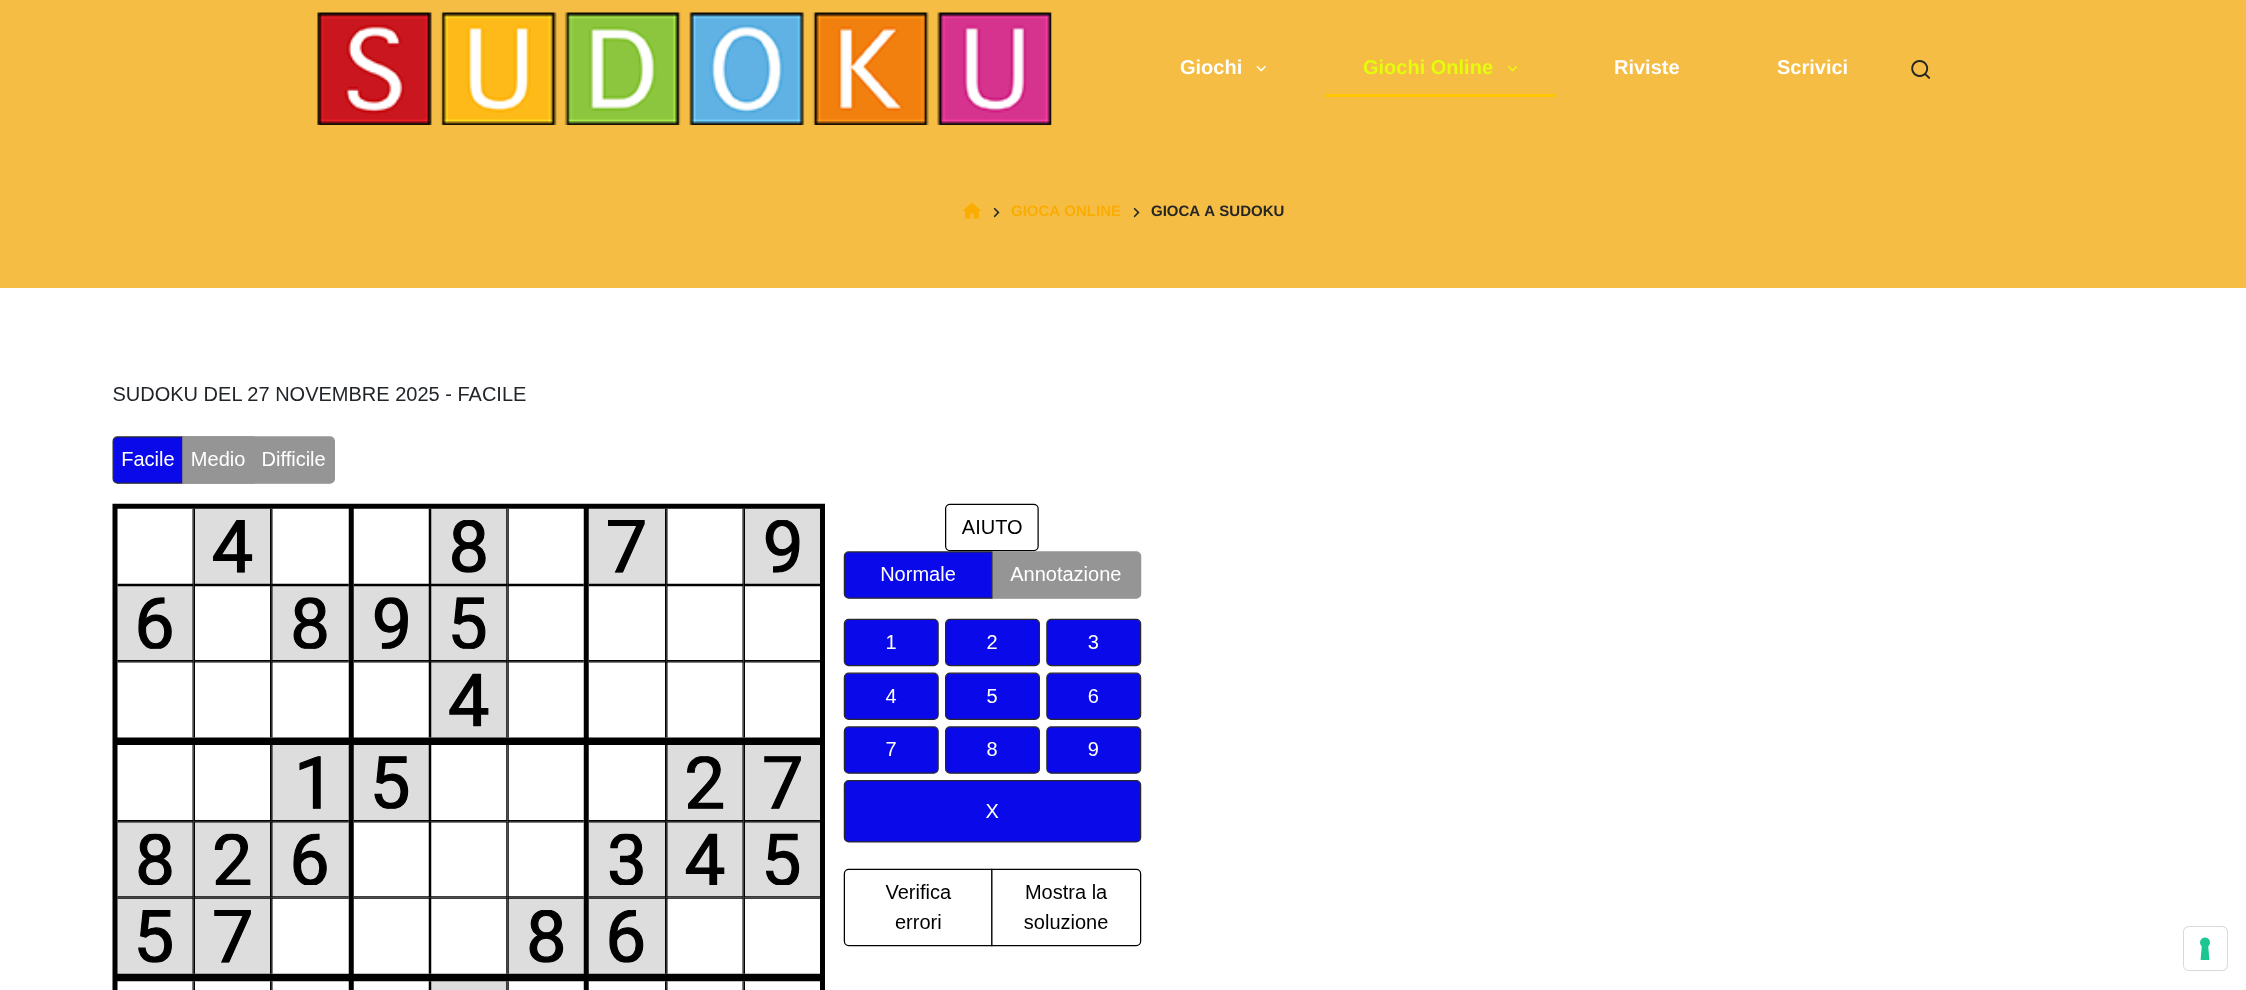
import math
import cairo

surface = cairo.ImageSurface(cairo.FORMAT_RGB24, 2246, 990)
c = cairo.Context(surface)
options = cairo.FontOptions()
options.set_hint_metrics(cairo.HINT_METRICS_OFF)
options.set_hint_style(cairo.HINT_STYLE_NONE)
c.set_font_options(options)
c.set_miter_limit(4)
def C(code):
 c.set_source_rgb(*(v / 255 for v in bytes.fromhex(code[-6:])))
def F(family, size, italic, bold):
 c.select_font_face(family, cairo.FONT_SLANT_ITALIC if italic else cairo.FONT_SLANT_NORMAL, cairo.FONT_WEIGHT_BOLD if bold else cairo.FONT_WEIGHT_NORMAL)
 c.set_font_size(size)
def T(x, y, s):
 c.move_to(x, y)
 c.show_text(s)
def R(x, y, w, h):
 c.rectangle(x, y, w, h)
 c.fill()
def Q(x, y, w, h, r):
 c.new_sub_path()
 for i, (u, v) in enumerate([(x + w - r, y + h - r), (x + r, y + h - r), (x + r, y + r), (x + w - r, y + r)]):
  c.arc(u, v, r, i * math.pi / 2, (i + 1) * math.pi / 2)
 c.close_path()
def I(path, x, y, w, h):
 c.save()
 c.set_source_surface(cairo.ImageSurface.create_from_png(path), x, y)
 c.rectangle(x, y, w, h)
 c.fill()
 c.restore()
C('ffffff')
c.paint()
C('f5bd44')
R(0,0,2246,288)
I('1.png',317,12,735,113)
F('Liberation Sans',20,0,1)
C('ffffff')
T(1180,74,'Giochi')
I('2.png',1256,66,10,6)
C('e5fd0a')
T(1363,74,'Giochi Online')
I('3.png',1508,66,10,6)
C('ffc800')
R(1325,94,230,3)
C('ffffff')
T(1614,74,'Riviste')
T(1777,74,'Scrivici')
I('4.png',1911,60,19,19)
I('5.png',963,202,18,17)
I('6.png',993,208,7,10)
F('Liberation Sans',15,0,1)
C('fbac00')
T(1011,216,'GIOCA ONLINE')
I('6.png',1133,208,7,10)
C('262625')
T(1151,216,'GIOCA A SUDOKU')
I('7.png',112,387,1030,603)
Q(2183.5,926.5,44,44,5.5)
C('d9d9d9')
c.set_line_width(1)
c.stroke()
C('ffffff')
Q(2184,928,42,42,5)
c.fill()
I('8.png',2200,937,10,23)
surface.write_to_png('o.png')
